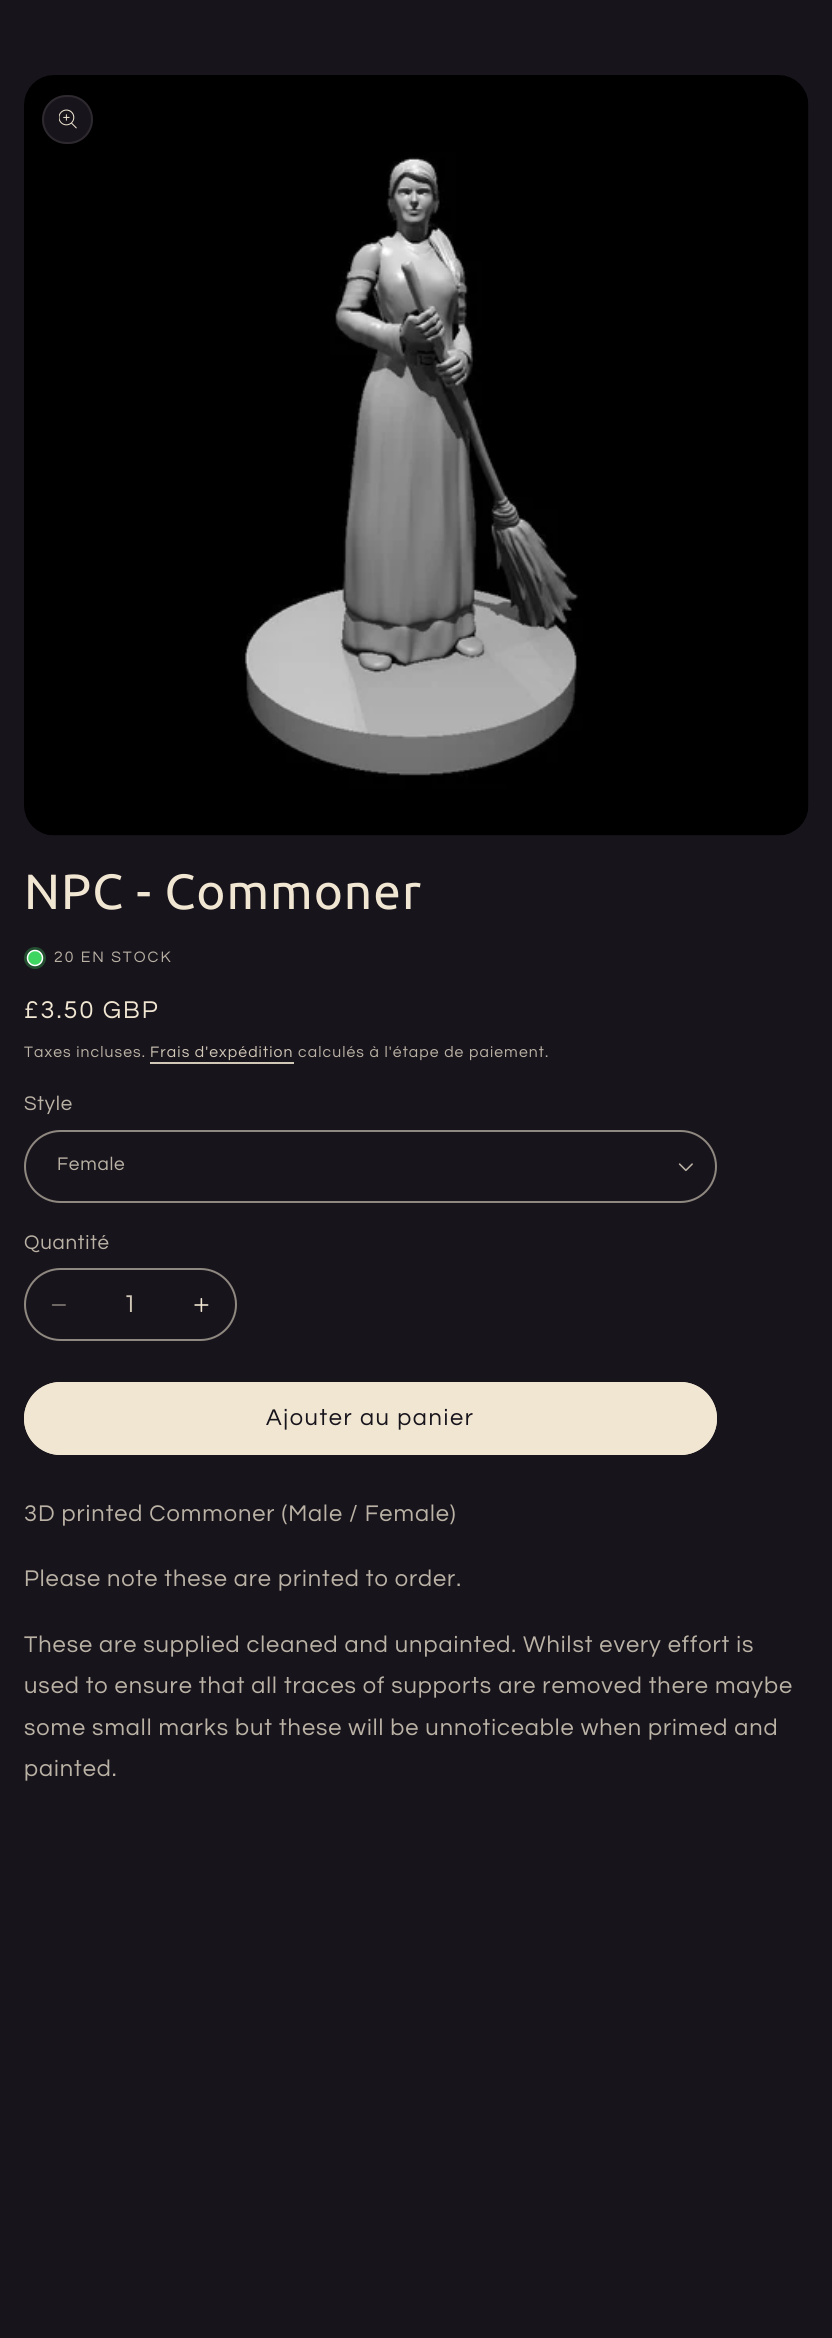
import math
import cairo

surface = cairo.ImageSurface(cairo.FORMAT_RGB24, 832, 2338)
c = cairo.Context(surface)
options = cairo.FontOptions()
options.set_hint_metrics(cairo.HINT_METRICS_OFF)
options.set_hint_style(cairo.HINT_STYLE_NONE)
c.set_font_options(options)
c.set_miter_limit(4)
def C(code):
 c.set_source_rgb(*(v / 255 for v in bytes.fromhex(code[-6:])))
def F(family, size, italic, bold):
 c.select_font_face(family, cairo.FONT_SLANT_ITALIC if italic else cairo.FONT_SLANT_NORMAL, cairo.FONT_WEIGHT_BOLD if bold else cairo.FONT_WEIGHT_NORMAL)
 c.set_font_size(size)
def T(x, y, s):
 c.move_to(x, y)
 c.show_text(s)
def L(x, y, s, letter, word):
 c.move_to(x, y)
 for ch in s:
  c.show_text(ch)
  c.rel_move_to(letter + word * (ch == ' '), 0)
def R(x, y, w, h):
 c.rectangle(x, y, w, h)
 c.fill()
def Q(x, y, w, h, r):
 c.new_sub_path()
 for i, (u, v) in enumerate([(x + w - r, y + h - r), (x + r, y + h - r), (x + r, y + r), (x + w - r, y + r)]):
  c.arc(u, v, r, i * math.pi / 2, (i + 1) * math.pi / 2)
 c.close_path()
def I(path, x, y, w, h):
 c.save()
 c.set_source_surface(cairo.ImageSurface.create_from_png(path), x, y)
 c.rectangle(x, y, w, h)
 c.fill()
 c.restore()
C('18141c')
c.paint()
I('1.png',24,75,785,761)
C('18141c')
Q(42,95,51,49,24.5)
c.fill()
Q(43,96,49,47,23.5)
c.set_source_rgba(0.941,0.902,0.824,0.1)
c.stroke()
I('2.png',59,109,18,20)
F('Ubuntu',49.5,0,0)
C('f0e6d2')
L(24,909,'NPC - Commoner',1,0)
C('234e30')
c.new_path()
c.arc(35,958,11,0,2 * math.pi)
c.fill()
C('3ed660')
c.arc(35,958,7.5,0,2 * math.pi)
c.fill_preserve()
C('ffffff')
c.set_line_width(1.5)
c.stroke()
F('Questrial',15.75,0,0)
C('bab2a5')
L(54,962,'20 EN STOCK',2,0)
F('Questrial',25.25,0,0)
C('f0e6d2')
L(24,1018,'£3.50 GBP',2,0)
F('Questrial',15.75,0,0)
C('bab2a5')
L(24,1057,'Taxes incluses.',1.1,0)
C('d0c7b7')
L(150,1057,'Frais d\'expédition',1.1,0)
R(150,1062,144,2)
C('bab2a5')
L(298,1057,'calculés à l\'étape de paiement.',1.1,0)
F('Questrial',20.5,0,0)
L(24,1110,'Style',.75,0)
I('3.png',678,1163,15,9)
Q(25,1131,691,71,35.5)
C('8f8880')
c.set_line_width(2)
c.stroke()
F('Questrial',19,0,0)
C('bab2a5')
L(57,1170,'Female',.75,0)
F('Questrial',20.5,0,0)
L(24,1249,'Quantité',.75,0)
I('4.png',51,1304,15,2)
I('5.png',194,1298,15,14)
Q(25,1269,211,71,35.5)
C('8f8880')
c.stroke()
F('Questrial',25.25,0,0)
C('d0c7b7')
T(123,1312,'1')
C('f0e6d2')
Q(24,1382,693,73,36.5)
c.fill()
Q(25,1383,691,71,35.5)
c.stroke()
F('Questrial',23.6,0,0)
C('18141c')
L(266,1425,'Ajouter au panier',1.6,0)
C('bab2a5')
L(24,1521,'3D printed Commoner (Male / Female)',.95,0)
L(24,1586,'Please note these are printed to order.',.95,0)
L(24,1652,'These are supplied cleaned and unpainted. Whilst every effort is',.95,0)
L(24,1693,'used to ensure that all traces of supports are removed there maybe',.95,0)
L(24,1735,'some small marks but these will be unnoticeable when primed and',.95,0)
L(24,1776,'painted.',.95,0)
surface.write_to_png('o.png')
